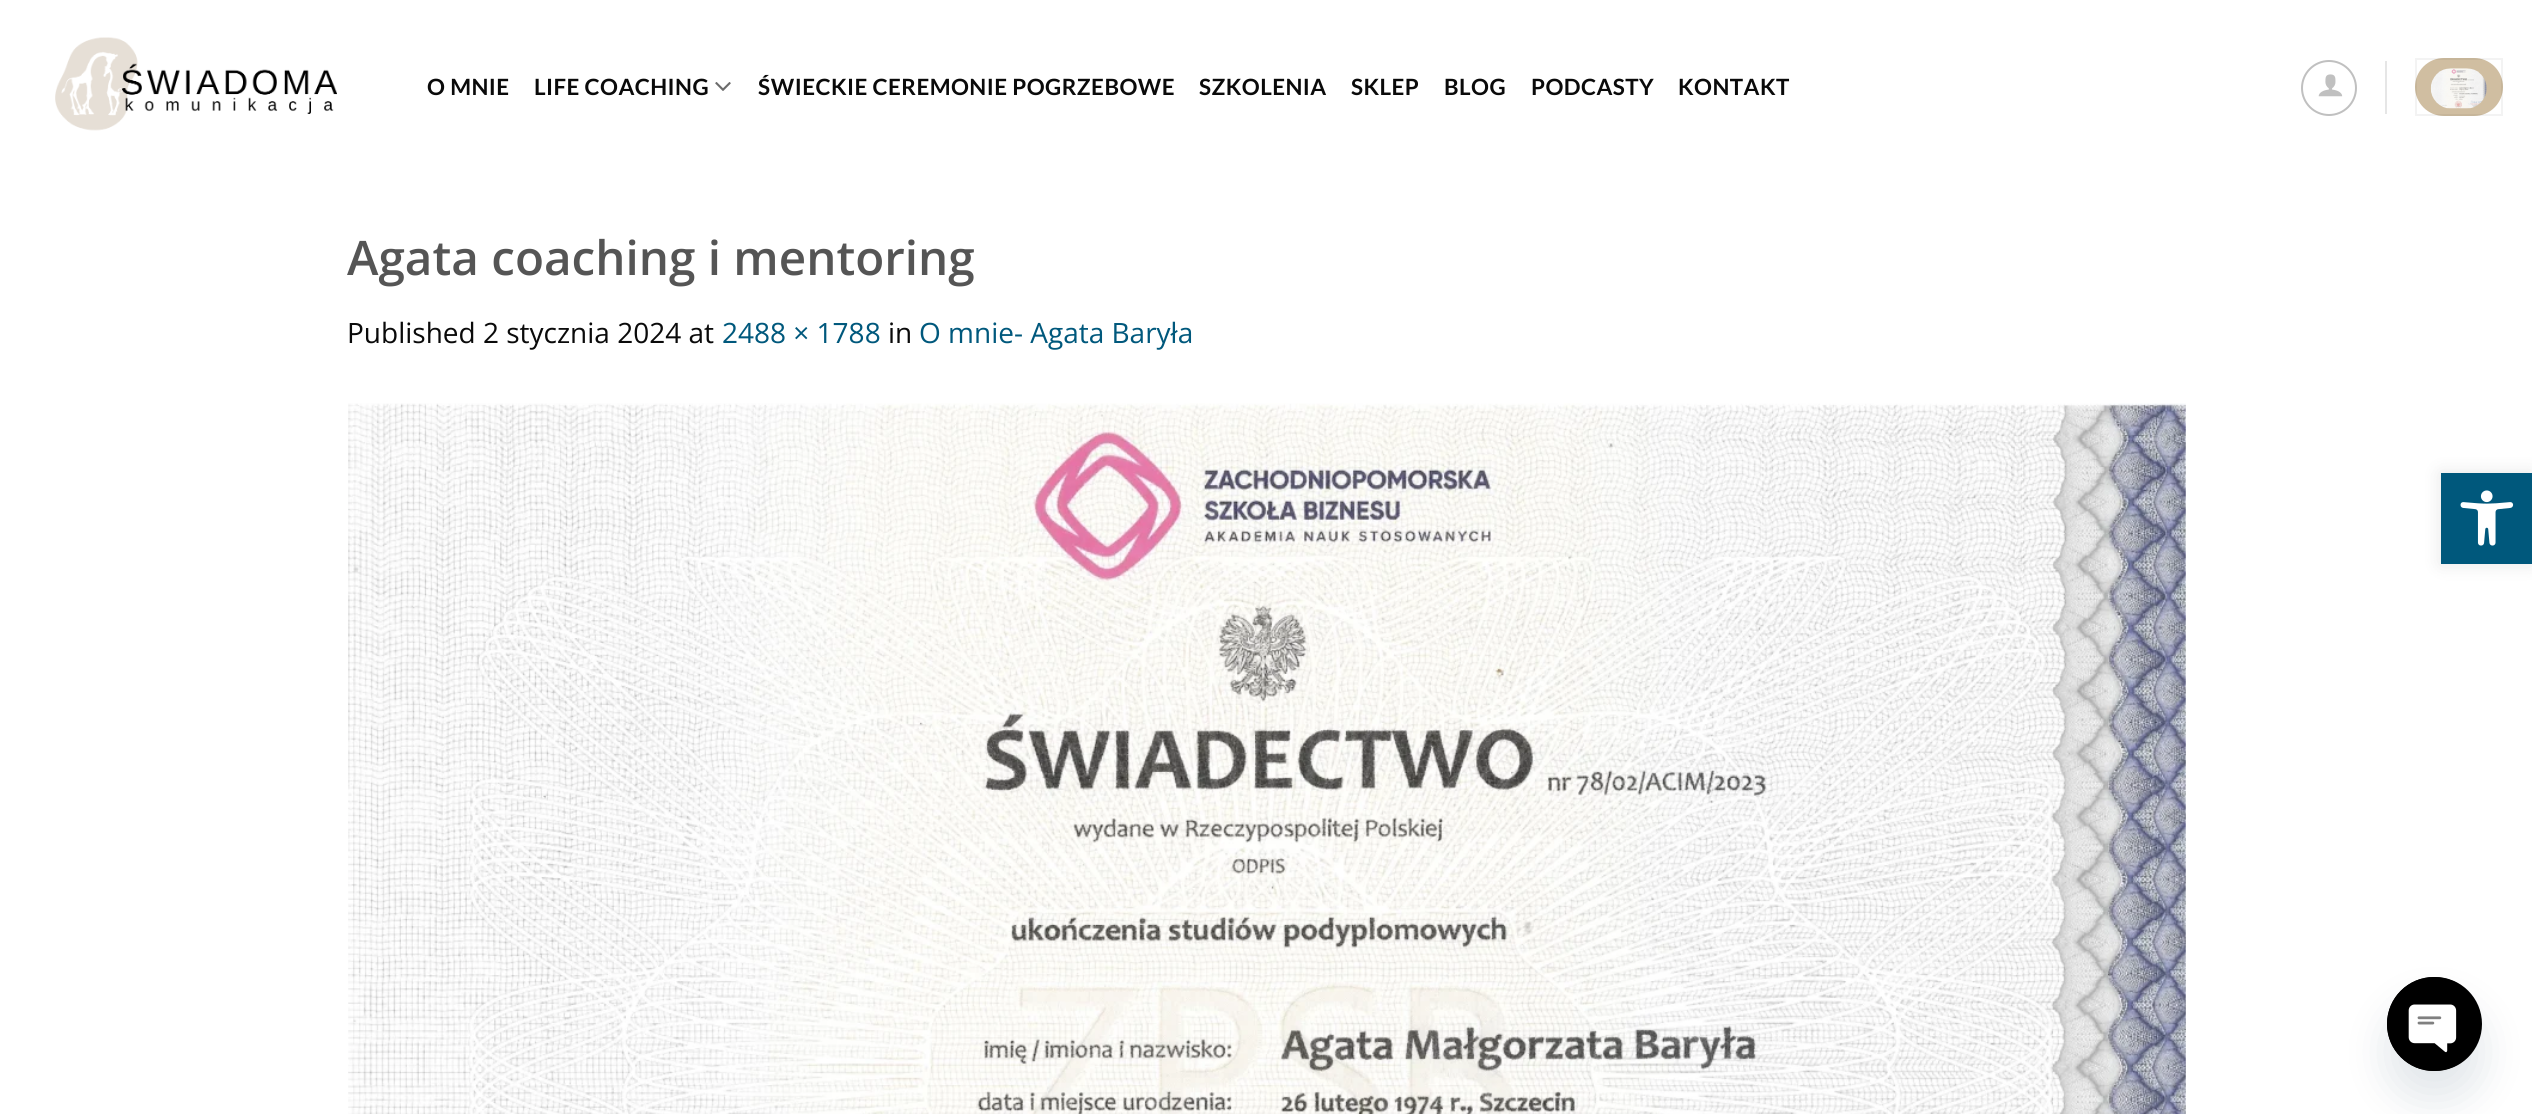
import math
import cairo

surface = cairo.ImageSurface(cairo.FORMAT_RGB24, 2532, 1114)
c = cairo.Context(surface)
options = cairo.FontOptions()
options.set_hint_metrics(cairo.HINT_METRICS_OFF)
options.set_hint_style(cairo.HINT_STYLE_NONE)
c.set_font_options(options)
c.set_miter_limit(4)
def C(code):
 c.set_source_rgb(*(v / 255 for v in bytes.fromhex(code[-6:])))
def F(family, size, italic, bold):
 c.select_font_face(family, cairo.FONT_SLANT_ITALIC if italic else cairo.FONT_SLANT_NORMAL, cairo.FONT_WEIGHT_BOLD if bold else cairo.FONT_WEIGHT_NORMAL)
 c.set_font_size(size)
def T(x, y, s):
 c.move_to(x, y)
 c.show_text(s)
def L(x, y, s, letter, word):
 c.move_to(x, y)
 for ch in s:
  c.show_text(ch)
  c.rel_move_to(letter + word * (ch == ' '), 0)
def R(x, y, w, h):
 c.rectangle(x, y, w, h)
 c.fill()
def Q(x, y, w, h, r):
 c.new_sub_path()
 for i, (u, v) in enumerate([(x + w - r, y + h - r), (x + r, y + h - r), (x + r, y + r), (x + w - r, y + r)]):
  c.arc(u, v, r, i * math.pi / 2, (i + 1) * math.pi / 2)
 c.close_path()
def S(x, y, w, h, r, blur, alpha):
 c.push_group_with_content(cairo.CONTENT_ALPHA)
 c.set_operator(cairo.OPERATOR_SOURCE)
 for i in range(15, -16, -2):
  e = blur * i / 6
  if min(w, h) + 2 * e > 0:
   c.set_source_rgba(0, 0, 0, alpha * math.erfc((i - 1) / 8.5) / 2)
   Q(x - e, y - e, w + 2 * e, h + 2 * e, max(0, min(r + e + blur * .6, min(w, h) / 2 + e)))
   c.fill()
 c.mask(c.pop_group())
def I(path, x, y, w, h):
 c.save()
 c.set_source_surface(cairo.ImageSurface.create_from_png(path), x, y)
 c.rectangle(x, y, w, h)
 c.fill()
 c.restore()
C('ffffff')
c.paint()
I('1.png',55,37,282,94)
F('Lato',22.4,0,1)
C('0a0a0a')
L(427,95,'O MNIE',.45,0)
L(534,95,'LIFE COACHING',.45,0)
I('2.png',715,82,16,9)
L(758,95,'ŚWIECKIE CEREMONIE POGRZEBOWE',.45,0)
L(1199,95,'SZKOLENIA',.45,0)
L(1351,95,'SKLEP',.45,0)
L(1444,95,'BLOG',.45,0)
L(1531,95,'PODCASTY',.45,0)
L(1678,95,'KONTAKT',.45,0)
c.new_path()
c.arc(2329,88,27,0,2 * math.pi)
C('c0c0c0')
c.stroke()
I('3.png',2318,74,25,23)
C('e6e6e6')
R(2385,61,2,53)
C('d0bea1')
Q(2415,58,88,58,29)
c.fill()
c.rectangle(2416,59,86,56)
c.set_source_rgba(0,0,0,0.05)
c.stroke()
I('4.png',2430,68,57,41)
F('Open Sans SemiBold',47.6,0,0)
C('555555')
T(347,275,'Agata coaching i mentoring')
F('Open Sans',28,0,0)
C('0a0a0a')
T(347,343,'Published 2 stycznia 2024 at')
C('00587c')
T(722,343,'2488 × 1788')
C('0a0a0a')
T(888,343,'in')
C('00587c')
T(919,343,'O mnie- Agata Baryła')
I('5.png',348,403,1838,711)
C('000000')
S(2441,473,91,91,0,9,.1)
C('00587c')
R(2441,473,91,91)
I('6.png',2460,490,54,56)
C('49687e')
S(2387,1005,95,94,47,21,.16)
C('000000')
Q(2387,977,95,94,47)
c.fill()
I('7.png',2387,977,70,94)
surface.write_to_png('o.png')
